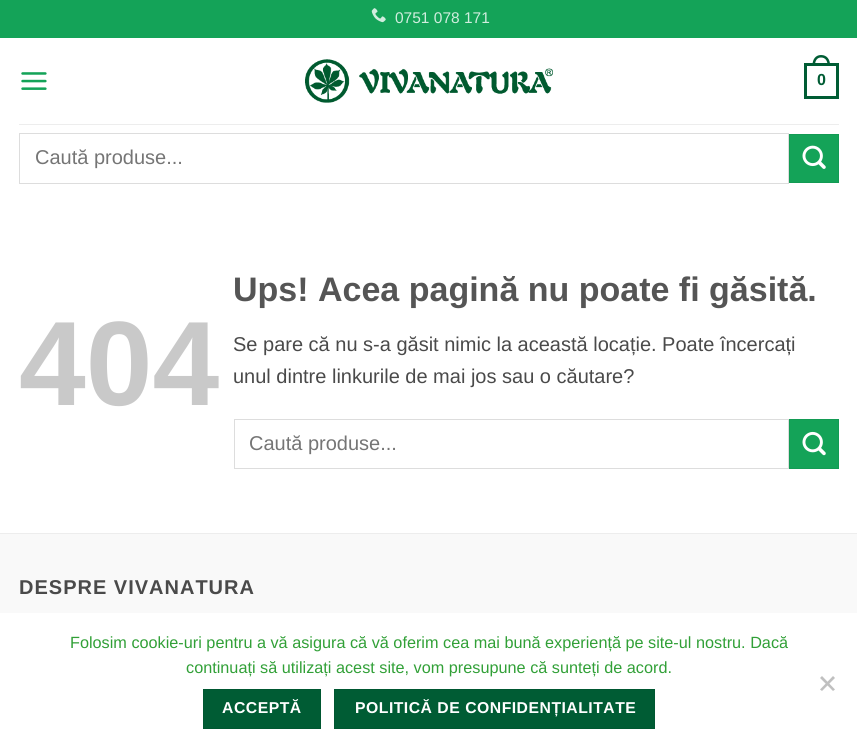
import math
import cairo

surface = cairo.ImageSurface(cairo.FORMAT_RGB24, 857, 753)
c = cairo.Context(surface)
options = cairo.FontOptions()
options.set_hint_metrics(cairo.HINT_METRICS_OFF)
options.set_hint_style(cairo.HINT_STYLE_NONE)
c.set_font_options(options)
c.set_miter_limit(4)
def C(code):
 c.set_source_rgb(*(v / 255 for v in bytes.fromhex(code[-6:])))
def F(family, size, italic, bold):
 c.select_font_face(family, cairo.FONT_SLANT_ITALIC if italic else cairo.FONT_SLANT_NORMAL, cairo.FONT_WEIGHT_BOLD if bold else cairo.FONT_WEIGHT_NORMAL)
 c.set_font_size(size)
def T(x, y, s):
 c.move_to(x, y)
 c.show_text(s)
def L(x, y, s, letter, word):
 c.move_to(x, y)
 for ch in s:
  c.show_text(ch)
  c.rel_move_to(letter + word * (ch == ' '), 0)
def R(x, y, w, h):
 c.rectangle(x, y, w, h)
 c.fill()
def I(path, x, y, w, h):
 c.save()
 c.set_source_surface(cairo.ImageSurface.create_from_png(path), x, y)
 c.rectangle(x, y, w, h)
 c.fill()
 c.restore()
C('ffffff')
c.paint()
C('14a358')
R(0,0,857,38)
I('1.png',371,8,15,15)
F('Liberation Sans',15.5,0,0)
C('d0edde')
T(395,23,'0751 078 171')
I('2.png',21,72,26,18)
I('3.png',305,59,248,44)
c.rectangle(805.5,64.5,32,33)
C('005c34')
c.set_line_width(3)
c.stroke()
c.set_fill_rule(cairo.FILL_RULE_EVEN_ODD)
c.new_path()
c.move_to(821,55)
c.curve_to(827,55,830,59.5,830,65)
c.line_to(812.5,65)
c.curve_to(812.5,59.5,815.5,55,821,55)
c.close_path()
c.move_to(821,57.5)
c.curve_to(825.5,57.5,827.5,61,827.5,65)
c.line_to(815,65)
c.curve_to(815,61,817,57.5,821,57.5)
c.close_path()
c.fill()
F('Liberation Sans',16,0,1)
T(817,85,'0')
C('ededed')
R(19,124,820,1)
c.rectangle(19.5,133.5,769,50)
C('dddddd')
c.set_line_width(1)
c.stroke()
F('Liberation Sans',20,0,0)
C('757575')
T(35,164,'Caută produse...')
C('14a358')
c.rectangle(789.5,134.5,49,48)
c.fill_preserve()
C('139b54')
c.stroke()
I('4.png',802,145,24,24)
F('Liberation Sans',120,0,1)
C('c9c9c9')
T(19,405,'404')
F('Liberation Sans',34,0,1)
C('555555')
T(233,301,'Ups! Acea pagină nu poate fi găsită.')
F('Liberation Sans',20,0,0)
C('4a4a4a')
T(233,351,'Se pare că nu s-a găsit nimic la această locație. Poate încercați')
T(233,383,'unul dintre linkurile de mai jos sau o căutare?')
c.rectangle(234.5,419.5,554,49)
C('dddddd')
c.stroke()
C('757575')
T(249,450,'Caută produse...')
C('14a358')
c.rectangle(789.5,419.5,49,49)
c.fill_preserve()
C('139b54')
c.stroke()
I('5.png',802,431,24,25)
C('f9f9f9')
R(0,534,857,79)
C('ededed')
R(0,533,857,1)
F('Liberation Sans',20,0,1)
C('4a4a4a')
L(19,594,'DESPRE VIVANATURA',1,0)
F('Liberation Sans',16.25,0,0)
C('31a037')
T(70,648,'Folosim cookie-uri pentru a vă asigura că vă oferim cea mai bună experiență pe site-ul nostru. Dacă')
T(186,673,'continuați să utilizați acest site, vom presupune că sunteți de acord.')
C('c0c0c0')
c.set_fill_rule(cairo.FILL_RULE_WINDING)
c.new_path()
c.move_to(833,676)
c.line_to(835,678)
c.line_to(822,691)
c.line_to(820,689.5)
c.close_path()
c.fill()
c.new_path()
c.move_to(820,678)
c.line_to(822,676)
c.line_to(835,689.5)
c.line_to(833,691)
c.close_path()
c.fill()
C('005c34')
c.rectangle(203.5,689.5,117,39)
c.fill_preserve()
C('005731')
c.stroke()
F('Liberation Sans',15.75,0,1)
C('ffffff')
L(222,713,'ACCEPTĂ',.5,0)
C('005c34')
c.rectangle(334.5,689.5,320,39)
c.fill_preserve()
C('005731')
c.stroke()
C('ffffff')
L(355,713,'POLITICĂ DE CONFIDENȚIALITATE',.5,0)
surface.write_to_png('o.png')
